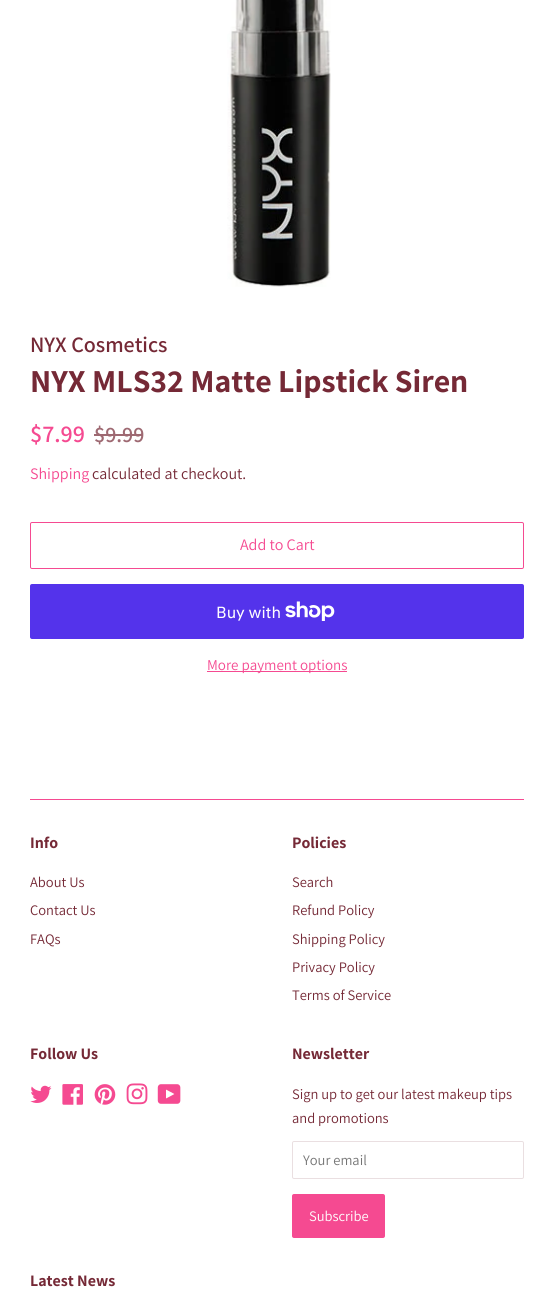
import math
import cairo

surface = cairo.ImageSurface(cairo.FORMAT_RGB24, 554, 1289)
c = cairo.Context(surface)
options = cairo.FontOptions()
options.set_hint_metrics(cairo.HINT_METRICS_OFF)
options.set_hint_style(cairo.HINT_STYLE_NONE)
c.set_font_options(options)
c.set_miter_limit(4)
def C(code):
 c.set_source_rgb(*(v / 255 for v in bytes.fromhex(code[-6:])))
def F(family, size, italic, bold):
 c.select_font_face(family, cairo.FONT_SLANT_ITALIC if italic else cairo.FONT_SLANT_NORMAL, cairo.FONT_WEIGHT_BOLD if bold else cairo.FONT_WEIGHT_NORMAL)
 c.set_font_size(size)
def T(x, y, s):
 c.move_to(x, y)
 c.show_text(s)
def R(x, y, w, h):
 c.rectangle(x, y, w, h)
 c.fill()
def Q(x, y, w, h, r):
 c.new_sub_path()
 for i, (u, v) in enumerate([(x + w - r, y + h - r), (x + r, y + h - r), (x + r, y + r), (x + w - r, y + r)]):
  c.arc(u, v, r, i * math.pi / 2, (i + 1) * math.pi / 2)
 c.close_path()
def I(path, x, y, w, h):
 c.save()
 c.set_source_surface(cairo.ImageSurface.create_from_png(path), x, y)
 c.rectangle(x, y, w, h)
 c.fill()
 c.restore()
C('ffffff')
c.paint()
I('1.png',227,0,104,287)
F('Assistant SemiBold',22,0,0)
C('752936')
T(30,352,'NYX Cosmetics')
F('Assistant',32,0,1)
T(30,392,'NYX MLS32 Matte Lipstick Siren')
F('Assistant SemiBold',24,0,0)
C('f54a91')
T(30,442,'$7.99')
F('Assistant SemiBold',22,0,0)
C('9e6972')
T(94,442,'$9.99')
R(94,434,49,2)
F('Assistant',16,0,0)
C('f54a91')
T(30,479,'Shipping')
C('752936')
T(92,479,'calculated at checkout.')
Q(30.5,522.5,493,46,1.5)
C('f54a91')
c.set_line_width(1)
c.stroke()
T(240,550,'Add to Cart')
C('5433eb')
Q(30,584,494,55,2)
c.fill()
F('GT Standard',16,0,0)
C('ffffff')
T(216,618,'Buy with')
I('2.png',285,601,50,20)
C('f54a91')
R(207,671,140,1)
F('Assistant',15,0,0)
T(207,670,'More payment options')
R(30,799,494,1)
F('Assistant',16,0,1)
C('752936')
T(30,848,'Info')
F('Assistant',14.5,0,0)
T(30,887,'About Us')
T(30,915,'Contact Us')
T(30,944,'FAQs')
F('Assistant',16,0,1)
T(292,848,'Policies')
F('Assistant',14.5,0,0)
T(292,887,'Search')
T(292,915,'Refund Policy')
T(292,944,'Shipping Policy')
T(292,972,'Privacy Policy')
T(292,1000,'Terms of Service')
F('Assistant',16,0,1)
T(30,1059,'Follow Us')
I('3.png',30,1085,22,18)
I('4.png',62,1084,21,21)
I('5.png',94,1084,22,21)
I('6.png',126,1083,22,22)
I('7.png',157,1084,24,20)
T(292,1059,'Newsletter')
F('Assistant',14.5,0,0)
T(292,1099,'Sign up to get our latest makeup tips')
T(292,1123,'and promotions')
Q(292.5,1141.5,231,37,1.5)
C('eadfe1')
c.stroke()
C('757575')
T(303,1165,'Your email')
C('f54a91')
Q(292,1194,93,44,2)
c.fill()
C('ffffff')
T(309,1221,'Subscribe')
F('Assistant',16,0,1)
C('752936')
T(30,1286,'Latest News')
surface.write_to_png('o.png')
